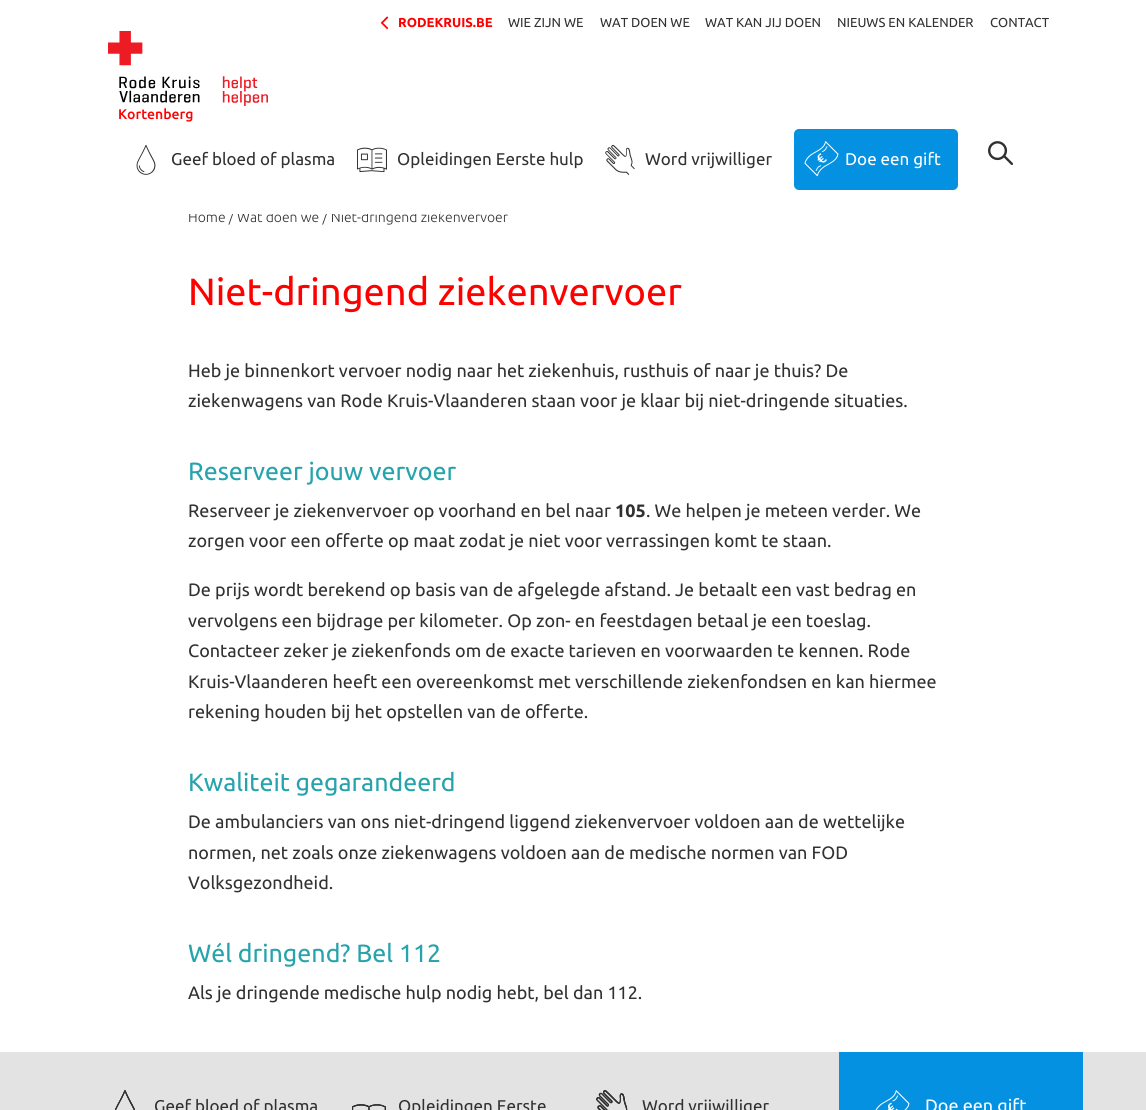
import math
import cairo

surface = cairo.ImageSurface(cairo.FORMAT_RGB24, 1146, 1110)
c = cairo.Context(surface)
options = cairo.FontOptions()
options.set_hint_metrics(cairo.HINT_METRICS_OFF)
options.set_hint_style(cairo.HINT_STYLE_NONE)
c.set_font_options(options)
c.set_miter_limit(4)
def C(code):
 c.set_source_rgb(*(v / 255 for v in bytes.fromhex(code[-6:])))
def F(family, size, italic, bold):
 c.select_font_face(family, cairo.FONT_SLANT_ITALIC if italic else cairo.FONT_SLANT_NORMAL, cairo.FONT_WEIGHT_BOLD if bold else cairo.FONT_WEIGHT_NORMAL)
 c.set_font_size(size)
def T(x, y, s):
 c.move_to(x, y)
 c.show_text(s)
def R(x, y, w, h):
 c.rectangle(x, y, w, h)
 c.fill()
def Q(x, y, w, h, r):
 c.new_sub_path()
 for i, (u, v) in enumerate([(x + w - r, y + h - r), (x + r, y + h - r), (x + r, y + r), (x + w - r, y + r)]):
  c.arc(u, v, r, i * math.pi / 2, (i + 1) * math.pi / 2)
 c.close_path()
def I(path, x, y, w, h):
 c.save()
 c.set_source_surface(cairo.ImageSurface.create_from_png(path), x, y)
 c.rectangle(x, y, w, h)
 c.fill()
 c.restore()
C('ffffff')
c.paint()
F('Ubuntu Light',14,0,0)
C('313131')
T(188,222,'Home / Wat doen we / Niet-dringend ziekenvervoer')
C('ffffff')
R(189,211,251,3)
I('1.png',380,16,9,14)
F('Ubuntu',13,0,1)
C('ff0000')
T(398,27,'RODEKRUIS.BE')
F('Ubuntu',13,0,0)
C('313131')
T(508,27,'WIE ZIJN WE')
T(600,27,'WAT DOEN WE')
T(705,27,'WAT KAN JIJ DOEN')
T(837,27,'NIEUWS EN KALENDER')
T(990,27,'CONTACT')
I('2.png',108,31,160,75)
F('Ubuntu Medium',14,0,0)
C('ff0000')
T(118,119,'Kortenberg')
I('3.png',136,145,20,30)
F('Ubuntu',17,0,0)
C('313131')
T(171,165,'Geef bloed of plasma')
I('4.png',357,147,30,26)
T(397,165,'Opleidingen Eerste hulp')
I('5.png',605,144,30,31)
T(645,165,'Word vrijwilliger')
C('0591e2')
Q(794,129,164,61,5)
c.fill()
I('6.png',804,141,35,36)
C('ffffff')
T(845,165,'Doe een gift')
I('7.png',988,141,25,24)
F('Ubuntu',38,0,0)
C('ff0000')
T(188,305,'Niet-dringend ziekenvervoer')
F('Ubuntu',18,0,0)
C('313131')
T(188,377,'Heb je binnenkort vervoer nodig naar het ziekenhuis, rusthuis of naar je thuis? De')
T(188,407,'ziekenwagens van Rode Kruis-Vlaanderen staan voor je klaar bij niet-dringende situaties.')
F('Ubuntu',25,0,0)
C('27a3ac')
T(188,480,'Reserveer jouw vervoer')
F('Ubuntu',18,0,0)
C('313131')
T(188,517,'Reserveer je ziekenvervoer op voorhand en bel naar')
F('Ubuntu',18,0,1)
T(615,517,'105')
F('Ubuntu',18,0,0)
T(646,517,'. We helpen je meteen verder. We')
T(188,547,'zorgen voor een offerte op maat zodat je niet voor verrassingen komt te staan.')
T(188,596,'De prijs wordt berekend op basis van de afgelegde afstand. Je betaalt een vast bedrag en')
T(188,627,'vervolgens een bijdrage per kilometer. Op zon- en feestdagen betaal je een toeslag.')
T(188,657,'Contacteer zeker je ziekenfonds om de exacte tarieven en voorwaarden te kennen. Rode')
T(188,688,'Kruis-Vlaanderen heeft een overeenkomst met verschillende ziekenfondsen en kan hiermee')
T(188,718,'rekening houden bij het opstellen van de offerte.')
F('Ubuntu',25,0,0)
C('27a3ac')
T(188,791,'Kwaliteit gegarandeerd')
F('Ubuntu',18,0,0)
C('313131')
T(188,828,'De ambulanciers van ons niet-dringend liggend ziekenvervoer voldoen aan de wettelijke')
T(188,859,'normen, net zoals onze ziekenwagens voldoen aan de medische normen van FOD')
T(188,889,'Volksgezondheid.')
F('Ubuntu',25,0,0)
C('27a3ac')
T(188,962,'Wél dringend? Bel 112')
F('Ubuntu',18,0,0)
C('313131')
T(188,999,'Als je dringende medische hulp nodig hebt, bel dan 112.')
C('e3e3e3')
R(0,1052,1146,58)
I('8.png',115,1090,20,20)
I('9.png',115,1090,20,20)
I('10.png',115,1090,20,20)
F('Ubuntu',17,0,0)
C('313131')
T(154,1112,'Geef bloed of plasma')
I('11.png',352,1104,34,6)
T(398,1112,'Opleidingen Eerste')
I('12.png',352,1104,34,6)
I('13.png',352,1104,34,6)
I('14.png',596,1090,32,20)
I('15.png',596,1090,32,20)
I('16.png',596,1090,32,20)
T(642,1112,'Word vrijwilliger')
C('0591e2')
R(839,1052,244,58)
I('17.png',875,1090,35,20)
F('Ubuntu',18,0,0)
C('ffffff')
T(925,1112,'Doe een gift')
surface.write_to_png('o.png')
